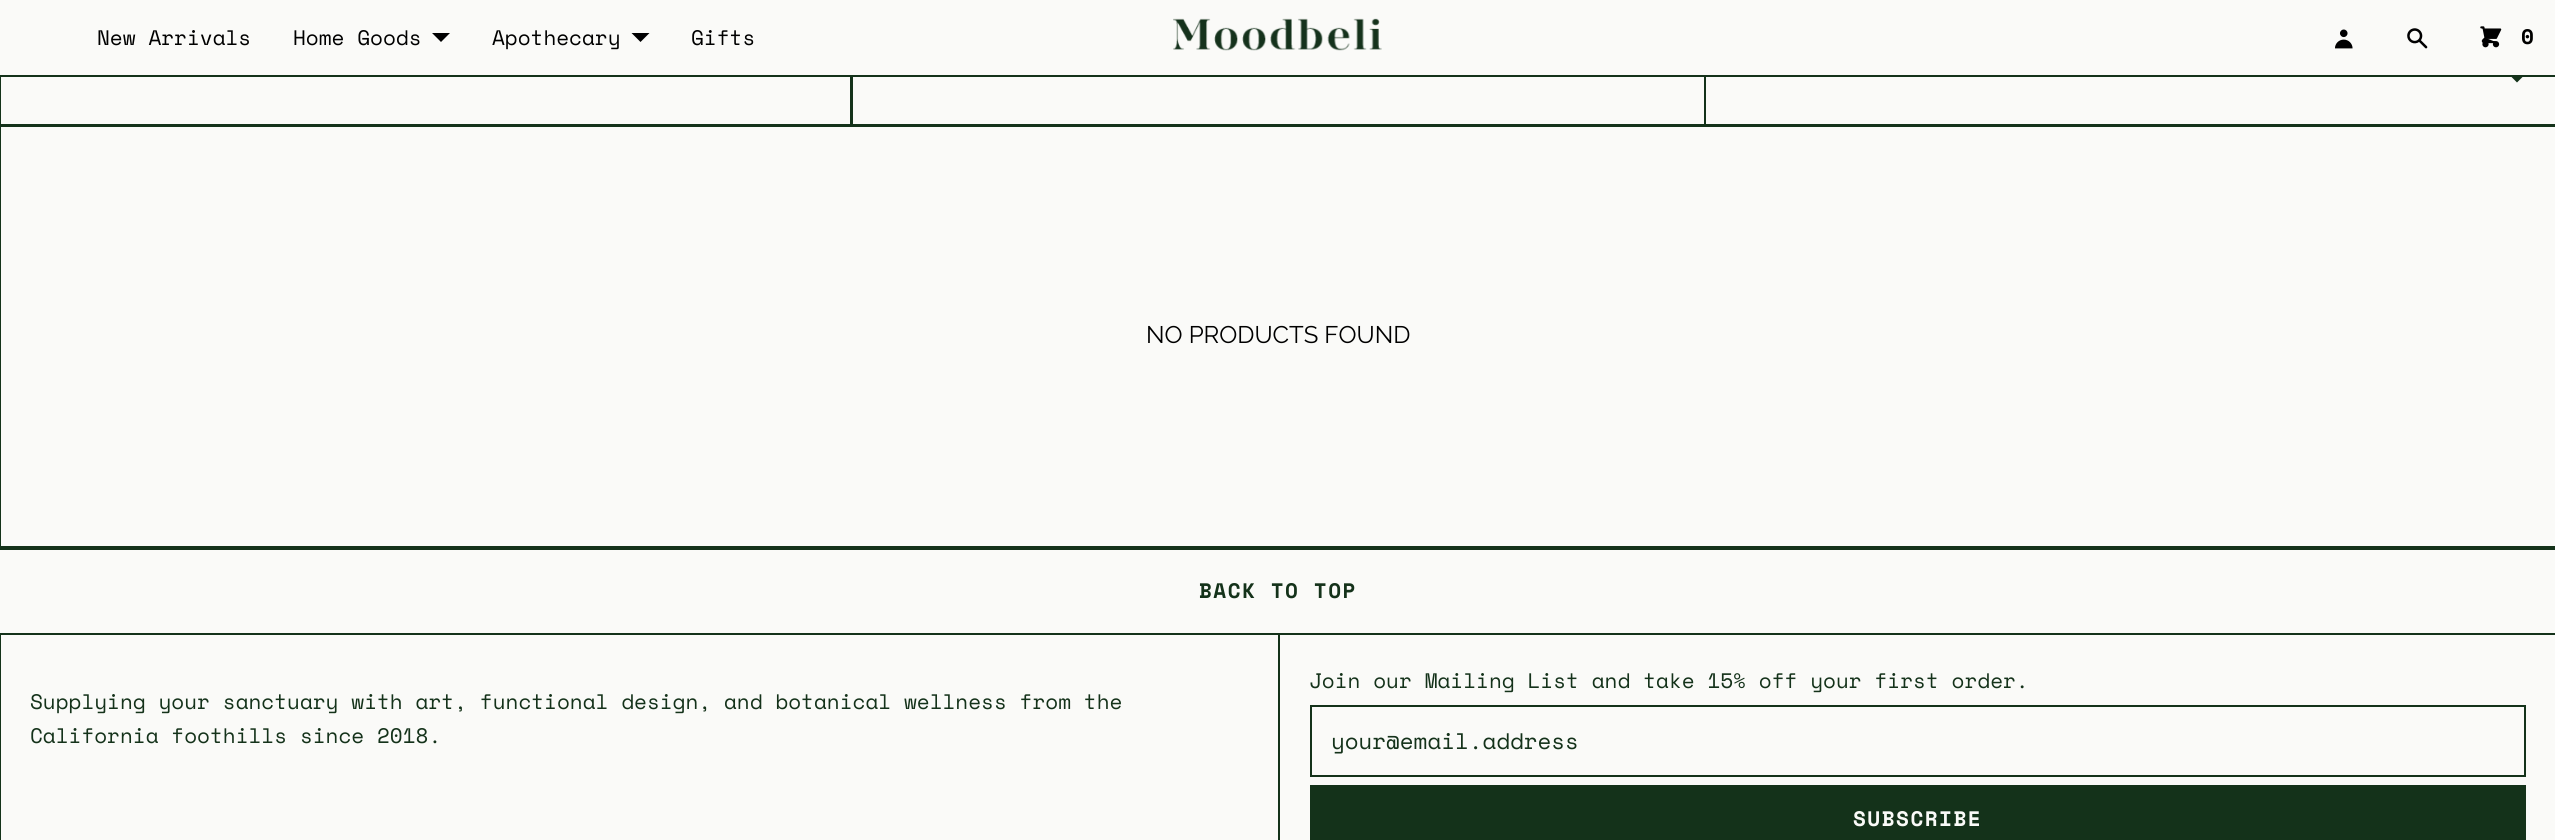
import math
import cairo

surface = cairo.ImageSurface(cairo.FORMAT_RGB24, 2555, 840)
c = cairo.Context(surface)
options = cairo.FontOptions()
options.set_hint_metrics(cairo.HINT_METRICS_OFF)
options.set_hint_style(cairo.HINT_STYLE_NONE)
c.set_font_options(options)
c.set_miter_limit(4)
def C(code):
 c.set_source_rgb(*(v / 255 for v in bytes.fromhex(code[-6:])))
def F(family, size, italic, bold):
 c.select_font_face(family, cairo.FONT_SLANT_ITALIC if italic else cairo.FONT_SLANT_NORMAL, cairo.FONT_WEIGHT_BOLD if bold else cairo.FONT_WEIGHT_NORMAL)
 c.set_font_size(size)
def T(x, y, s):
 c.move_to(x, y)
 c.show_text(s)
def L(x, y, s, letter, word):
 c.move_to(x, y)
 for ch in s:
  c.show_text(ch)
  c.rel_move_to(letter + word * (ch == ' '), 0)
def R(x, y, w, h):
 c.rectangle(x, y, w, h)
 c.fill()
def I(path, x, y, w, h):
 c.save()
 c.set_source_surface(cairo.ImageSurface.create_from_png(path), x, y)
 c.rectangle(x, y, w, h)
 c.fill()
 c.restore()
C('fafaf8')
c.paint()
c.rectangle(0,30,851,95)
C('14321a')
c.stroke()
c.rectangle(852,30,853,95)
c.stroke()
c.rectangle(1705,30,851,95)
c.stroke()
c.new_path()
c.move_to(2508,73.5)
c.line_to(2526,73.5)
c.line_to(2517,82.5)
c.close_path()
c.fill()
C('fafaf8')
R(0,29,2555,46)
C('14321a')
R(0,75,2555,2)
F('Space Mono',21,0,0)
C('000000')
T(97,45,'New Arrivals')
T(293,45,'Home Goods')
C('000001')
c.new_path()
c.move_to(432,33)
c.line_to(450,33)
c.line_to(441,42)
c.close_path()
c.fill()
C('000000')
T(492,45,'Apothecary')
C('000001')
c.new_path()
c.move_to(631.5,33)
c.line_to(649.5,33)
c.line_to(640.5,42)
c.close_path()
c.fill()
C('000000')
T(691,45,'Gifts')
I('1.png',1173,18,209,33)
I('2.png',2335,29,18,20)
I('3.png',2407,28,21,21)
I('4.png',2480,26,22,22)
F('Space Mono',21,0,1)
L(2521,44,'0',1.5,0)
c.save()
c.rectangle(0,126,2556,422)
c.clip()
c.rectangle(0,126,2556,421)
C('14321a')
c.stroke()
c.restore()
F('Raleway',24,0,0)
T(1146,343,'NO PRODUCTS FOUND')
C('14321a')
R(0,548,2555,2)
R(1280,633,1275,2)
F('Space Mono',21,0,1)
L(1199,598,'BACK TO TOP',1.5,0)
c.rectangle(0,634,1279,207)
c.stroke()
F('Space Mono',21,0,0)
T(30,709,'Supplying your sanctuary with art, functional design, and botanical wellness from the')
T(30,743,'California foothills since 2018.')
T(1309,688,'Join our Mailing List and take 15% off your first order.')
c.rectangle(1311,706,1214,70)
c.stroke()
F('Space Mono',22.5,0,0)
T(1331,749,'your@email.address')
R(1310,785,1216,55)
F('Space Mono',21,0,1)
C('fafaf8')
L(1853,826,'SUBSCRIBE',1.5,0)
surface.write_to_png('o.png')
